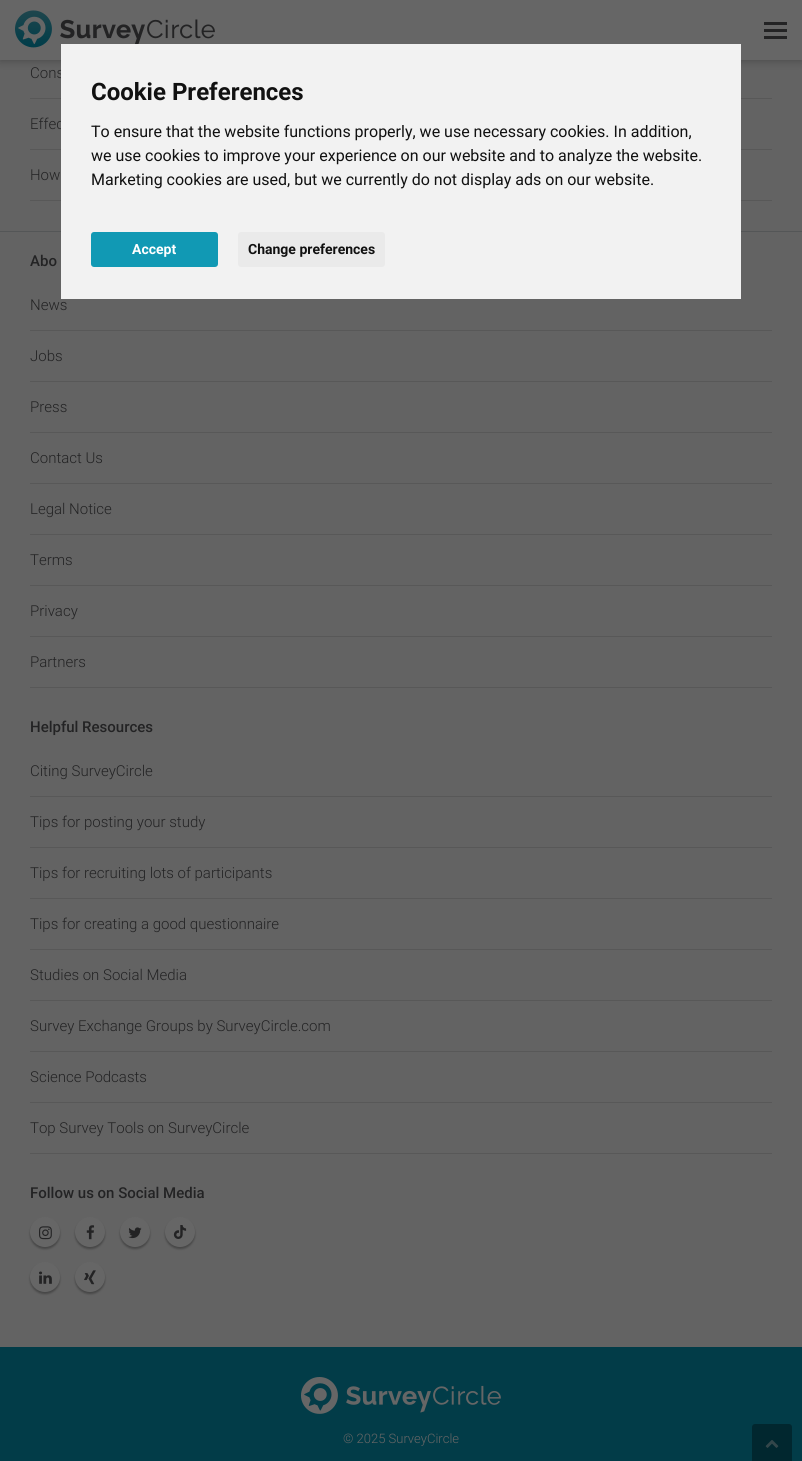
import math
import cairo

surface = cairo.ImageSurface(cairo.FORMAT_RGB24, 802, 1461)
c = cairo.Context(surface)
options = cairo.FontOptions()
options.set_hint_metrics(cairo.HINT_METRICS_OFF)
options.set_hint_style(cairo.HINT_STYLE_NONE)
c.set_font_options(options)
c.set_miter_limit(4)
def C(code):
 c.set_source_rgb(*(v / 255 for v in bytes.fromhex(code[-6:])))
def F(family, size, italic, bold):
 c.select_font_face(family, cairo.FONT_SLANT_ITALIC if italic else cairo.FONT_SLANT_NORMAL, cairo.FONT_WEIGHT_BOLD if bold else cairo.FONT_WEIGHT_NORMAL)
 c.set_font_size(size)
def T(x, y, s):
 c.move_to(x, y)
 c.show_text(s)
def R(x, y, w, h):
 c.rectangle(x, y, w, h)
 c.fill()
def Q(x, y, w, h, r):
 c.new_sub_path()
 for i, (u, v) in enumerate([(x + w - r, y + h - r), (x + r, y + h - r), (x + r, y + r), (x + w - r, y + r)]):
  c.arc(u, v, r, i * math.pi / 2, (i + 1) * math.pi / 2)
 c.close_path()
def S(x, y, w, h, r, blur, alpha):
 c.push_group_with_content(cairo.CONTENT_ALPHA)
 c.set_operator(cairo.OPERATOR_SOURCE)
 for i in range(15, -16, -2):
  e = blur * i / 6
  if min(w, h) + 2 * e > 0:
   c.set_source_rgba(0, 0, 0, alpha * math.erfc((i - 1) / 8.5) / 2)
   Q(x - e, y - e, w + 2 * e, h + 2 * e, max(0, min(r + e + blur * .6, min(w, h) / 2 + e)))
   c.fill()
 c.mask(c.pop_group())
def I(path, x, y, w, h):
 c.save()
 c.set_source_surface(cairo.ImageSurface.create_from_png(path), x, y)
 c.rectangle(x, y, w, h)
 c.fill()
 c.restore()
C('636363')
c.paint()
C('000000')
S(0,0,802,60,0,5,.3)
C('666666')
R(0,0,802,60)
I('1.png',15,10,200,38)
C('232324')
R(764,36,23,3)
R(764,29,23,3)
R(764,22,23,3)
C('585858')
R(30,98,742,1)
F('Roboto Light',15,0,0)
C('232324')
T(30,78,'Cons')
C('585858')
R(30,149,742,1)
C('232324')
T(30,129,'Effec')
C('585858')
R(30,200,742,1)
C('232324')
T(30,180,'How')
C('545657')
R(0,231,802,1)
F('Roboto Medium',15,0,0)
C('232324')
T(30,266,'Abo')
C('585858')
R(30,330,742,1)
F('Roboto Light',15,0,0)
C('232324')
T(30,310,'News')
C('585858')
R(30,381,742,1)
C('232324')
T(30,361,'Jobs')
C('585858')
R(30,432,742,1)
C('232324')
T(30,412,'Press')
C('585858')
R(30,483,742,1)
C('232324')
T(30,463,'Contact Us')
C('585858')
R(30,534,742,1)
C('232324')
T(30,514,'Legal Notice')
C('585858')
R(30,585,742,1)
C('232324')
T(30,565,'Terms')
C('585858')
R(30,636,742,1)
C('232324')
T(30,616,'Privacy')
C('585858')
R(30,687,742,1)
C('232324')
T(30,667,'Partners')
F('Roboto Medium',15,0,0)
T(30,732,'Helpful Resources')
C('585858')
R(30,796,742,1)
F('Roboto Light',15,0,0)
C('232324')
T(30,776,'Citing SurveyCircle')
C('585858')
R(30,847,742,1)
C('232324')
T(30,827,'Tips for posting your study')
C('585858')
R(30,898,742,1)
C('232324')
T(30,878,'Tips for recruiting lots of participants')
C('585858')
R(30,949,742,1)
C('232324')
T(30,929,'Tips for creating a good questionnaire')
C('585858')
R(30,1000,742,1)
C('232324')
T(30,980,'Studies on Social Media')
C('585858')
R(30,1051,742,1)
C('232324')
T(30,1031,'Survey Exchange Groups by SurveyCircle.com')
C('585858')
R(30,1102,742,1)
C('232324')
T(30,1082,'Science Podcasts')
C('585858')
R(30,1153,742,1)
C('232324')
T(30,1133,'Top Survey Tools on SurveyCircle')
F('Roboto Medium',15,0,0)
T(30,1198,'Follow us on Social Media')
C('000000')
S(30,1219,30,30,15,1,.3)
C('666666')
c.arc(45,1232,15,0,2 * math.pi)
c.fill()
I('2.png',39,1226,13,14)
C('000000')
S(75,1219,30,30,15,1,.3)
C('666666')
c.arc(90,1232,15,0,2 * math.pi)
c.fill()
I('3.png',86,1225,9,15)
C('000000')
S(120,1219,30,30,15,1,.3)
C('666666')
c.arc(135,1232,15,0,2 * math.pi)
c.fill()
I('4.png',128,1227,14,12)
C('000000')
S(165,1219,30,30,15,1,.3)
C('666666')
c.arc(180,1232,15,0,2 * math.pi)
c.fill()
I('5.png',173,1225,14,14)
C('000000')
S(30,1264,30,30,15,1,.3)
C('666666')
c.arc(45,1277,15,0,2 * math.pi)
c.fill()
I('6.png',39,1271,13,13)
C('000000')
S(75,1264,30,30,15,1,.3)
C('666666')
c.arc(90,1277,15,0,2 * math.pi)
c.fill()
I('7.png',84,1270,12,15)
C('023c48')
R(0,1347,802,114)
I('8.png',301,1377,200,37)
F('Roboto Light',13,0,0)
C('666666')
T(343,1443,'© 2025 SurveyCircle')
C('f2f2f2')
R(61,44,680,255)
F('Roboto',24,0,1)
C('111111')
T(91,100,'Cookie Preferences')
F('Roboto',16,0,0)
T(91,137,'To ensure that the website functions properly, we use necessary cookies. In addition,')
T(91,161,'we use cookies to improve your experience on our website and to analyze the website.')
T(91,185,'Marketing cookies are used, but we currently do not display ads on our website.')
C('1199b4')
Q(91,232,127,35,3)
c.fill()
F('Roboto',14,0,1)
C('ffffff')
T(132,254,'Accept')
C('eaeaea')
Q(238,232,147,35,3)
c.fill()
C('111111')
T(248,254,'Change preferences')
C('01272f')
Q(752,1424,40,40,3)
c.fill()
I('9.png',765,1440,14,8)
surface.write_to_png('o.png')
